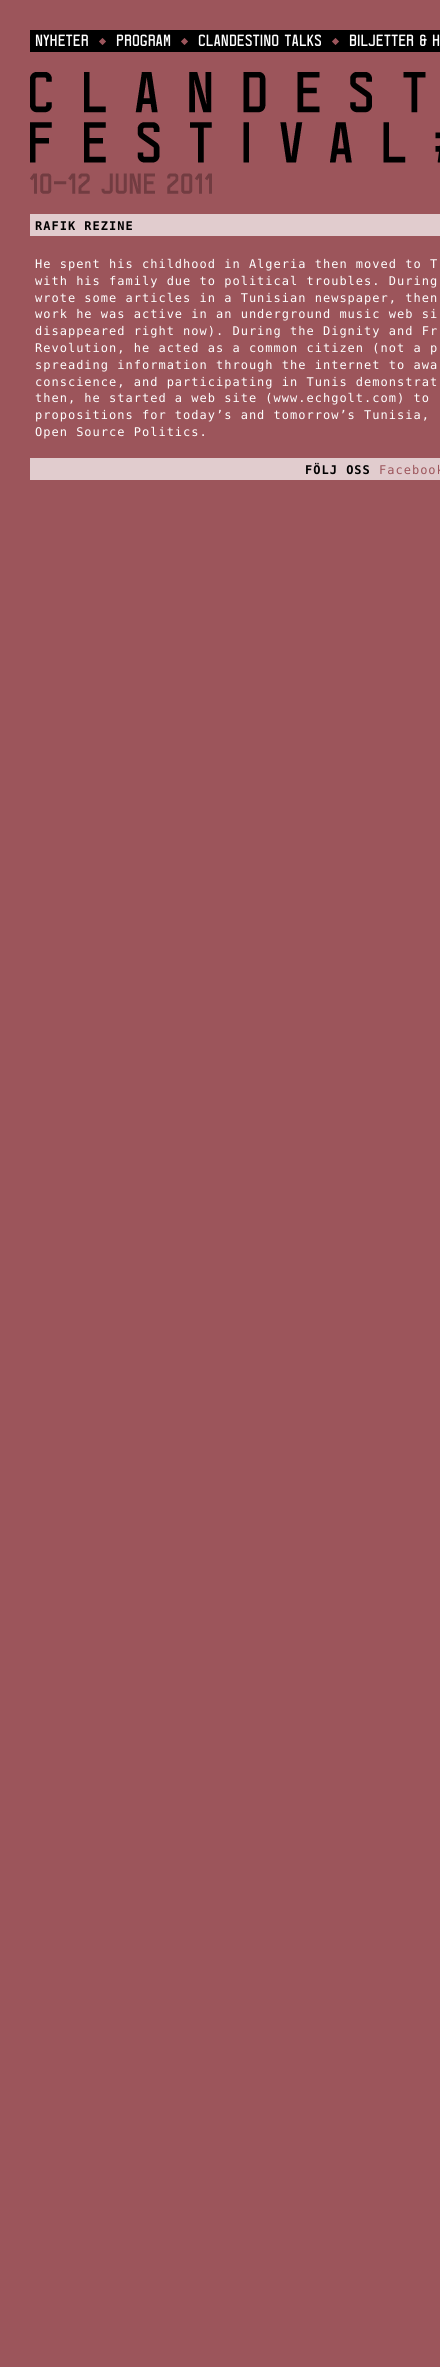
import math
import cairo

surface = cairo.ImageSurface(cairo.FORMAT_RGB24, 440, 2367)
c = cairo.Context(surface)
options = cairo.FontOptions()
options.set_hint_metrics(cairo.HINT_METRICS_OFF)
options.set_hint_style(cairo.HINT_STYLE_NONE)
c.set_font_options(options)
c.set_miter_limit(4)
def C(code):
 c.set_source_rgb(*(v / 255 for v in bytes.fromhex(code[-6:])))
def F(family, size, italic, bold):
 c.select_font_face(family, cairo.FONT_SLANT_ITALIC if italic else cairo.FONT_SLANT_NORMAL, cairo.FONT_WEIGHT_BOLD if bold else cairo.FONT_WEIGHT_NORMAL)
 c.set_font_size(size)
def T(x, y, s):
 c.move_to(x, y)
 c.show_text(s)
def L(x, y, s, letter, word):
 c.move_to(x, y)
 for ch in s:
  c.show_text(ch)
  c.rel_move_to(letter + word * (ch == ' '), 0)
def R(x, y, w, h):
 c.rectangle(x, y, w, h)
 c.fill()
def I(path, x, y, w, h):
 c.save()
 c.set_source_surface(cairo.ImageSurface.create_from_png(path), x, y)
 c.rectangle(x, y, w, h)
 c.fill()
 c.restore()
C('9c555b')
c.paint()
C('000000')
R(30,30,410,22)
F('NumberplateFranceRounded',16,0,0)
C('ffffff')
T(35,46,'NYHETER')
I('1.png',99,38,7,7)
T(116,46,'PROGRAM')
I('1.png',181,38,7,7)
T(198,46,'CLANDESTINO TALKS')
I('1.png',332,38,7,7)
T(349,46,'BILJETTER & H')
I('2.png',30,72,410,122)
C('e1ccce')
R(30,214,410,22)
F('DejaVu Sans Mono',12,0,1)
C('000000')
L(35,230,'RAFIK REZINE',1,0)
F('DejaVu Sans Mono',12,0,0)
C('ffffff')
L(35,268,'He spent his childhood in Algeria then moved to T',1,0)
L(35,285,'with his family due to political troubles. During',1,0)
L(35,302,'wrote some articles in a Tunisian newspaper, then',1,0)
L(35,318,'work he was active in an underground music web si',1,0)
L(35,335,'disappeared right now). During the Dignity and Fr',1,0)
L(35,352,'Revolution, he acted as a common citizen (not a p',1,0)
L(35,369,'spreading information through the internet to awa',1,0)
L(35,386,'conscience, and participating in Tunis demonstrat',1,0)
L(35,402,'then, he started a web site (www.echgolt.com) to',1,0)
L(35,419,'propositions for today’s and tomorrow’s Tunisia,',1,0)
L(35,436,'Open Source Politics.',1,0)
C('e1ccce')
R(30,458,410,22)
F('DejaVu Sans Mono',12,0,1)
C('000000')
L(305,474,'FÖLJ OSS',1,0)
F('DejaVu Sans Mono',12,0,0)
C('9c555b')
L(379,474,'Facebook',1,0)
surface.write_to_png('o.png')
